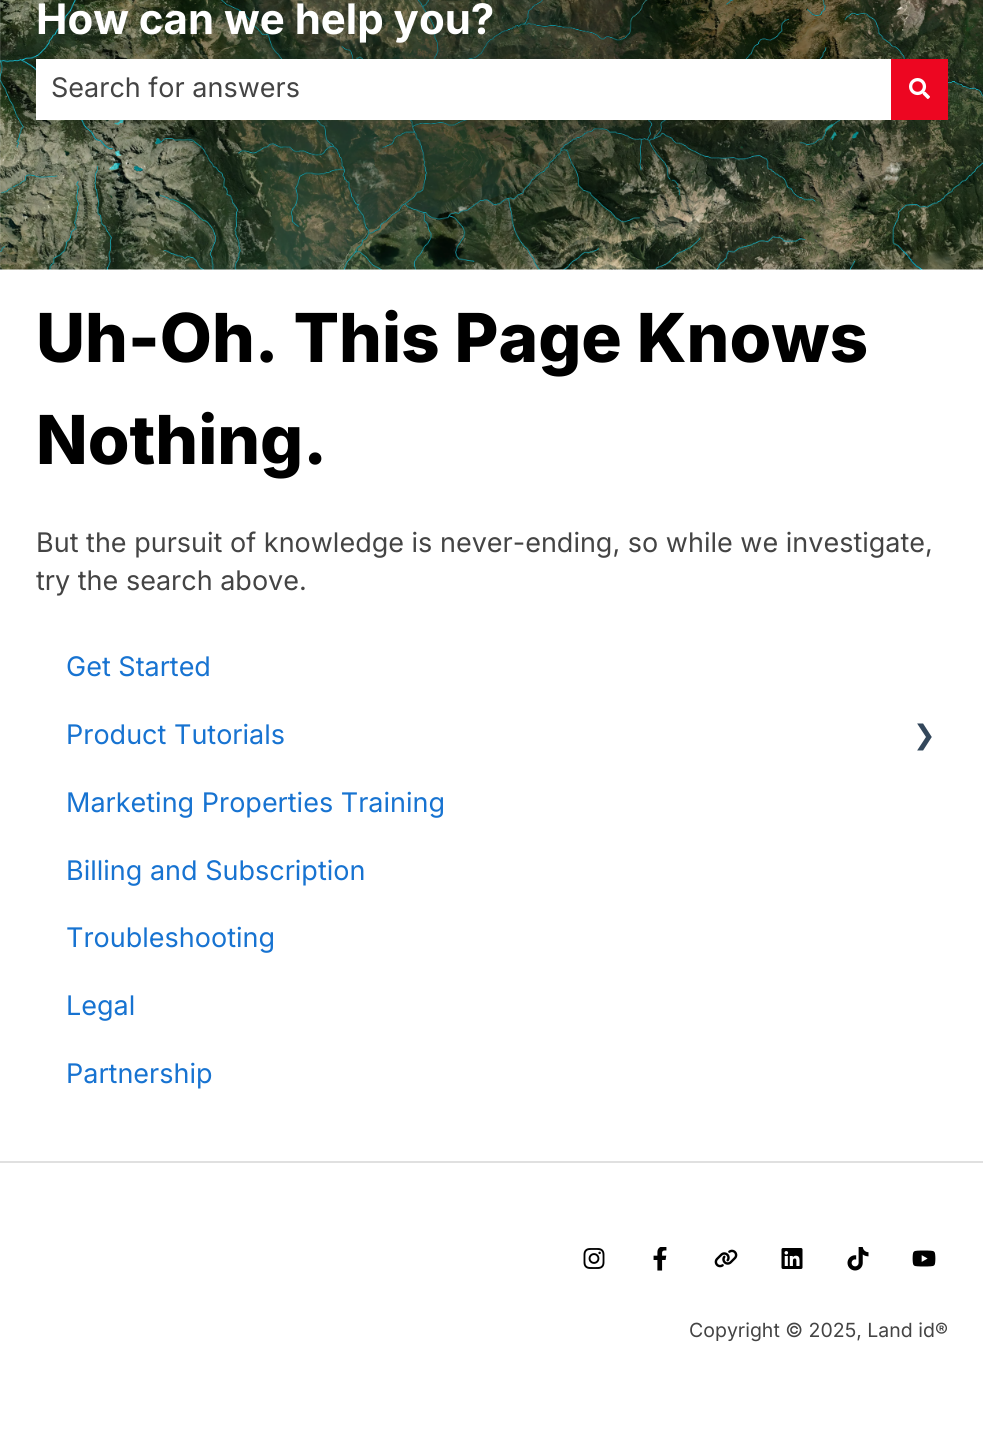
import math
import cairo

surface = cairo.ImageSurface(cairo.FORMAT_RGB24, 983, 1448)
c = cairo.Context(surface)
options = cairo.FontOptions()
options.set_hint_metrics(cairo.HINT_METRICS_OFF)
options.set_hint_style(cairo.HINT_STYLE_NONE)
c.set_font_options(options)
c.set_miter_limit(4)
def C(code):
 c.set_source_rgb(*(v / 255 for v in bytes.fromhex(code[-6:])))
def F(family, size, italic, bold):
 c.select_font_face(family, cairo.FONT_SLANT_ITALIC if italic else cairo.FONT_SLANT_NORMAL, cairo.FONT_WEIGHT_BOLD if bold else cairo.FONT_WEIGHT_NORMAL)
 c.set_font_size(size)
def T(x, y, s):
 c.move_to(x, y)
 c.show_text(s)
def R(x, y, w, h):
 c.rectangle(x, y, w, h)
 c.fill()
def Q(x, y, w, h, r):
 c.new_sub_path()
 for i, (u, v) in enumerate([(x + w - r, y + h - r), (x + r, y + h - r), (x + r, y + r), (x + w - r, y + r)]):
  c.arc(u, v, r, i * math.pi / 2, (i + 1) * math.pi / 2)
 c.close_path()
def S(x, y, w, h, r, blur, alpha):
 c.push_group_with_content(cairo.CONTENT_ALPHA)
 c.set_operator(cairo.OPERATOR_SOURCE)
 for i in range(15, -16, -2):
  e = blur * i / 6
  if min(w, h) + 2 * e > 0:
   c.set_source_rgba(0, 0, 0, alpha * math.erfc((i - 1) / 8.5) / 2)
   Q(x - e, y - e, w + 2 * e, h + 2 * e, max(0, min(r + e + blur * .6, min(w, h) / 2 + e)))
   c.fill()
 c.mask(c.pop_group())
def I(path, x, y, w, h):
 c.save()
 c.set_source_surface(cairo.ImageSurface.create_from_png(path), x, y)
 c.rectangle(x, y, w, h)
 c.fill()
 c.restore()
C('ffffff')
c.paint()
I('1.png',0,0,983,270)
F('Inter',42,0,1)
C('ffffff')
T(36,34,'How can we help you?')
C('000000')
S(36,60,855,62,0,18,.08)
C('ffffff')
R(36,59,855,61)
F('Inter',27,0,0)
C('444444')
T(51,97,'Search for answers')
C('ed0621')
R(891,59,57,61)
I('2.png',909,78,21,21)
F('Inter ExtraBold',67.5,0,0)
C('000000')
T(36,362,'Uh-Oh. This Page Knows')
T(36,464,'Nothing.')
F('Inter',27,0,0)
C('444444')
T(36,552,'But the pursuit of knowledge is never-ending, so while we investigate,')
T(36,590,'try the search above.')
C('1773d1')
T(66,676,'Get Started')
T(66,744,'Product Tutorials')
F('DejaVu Sans',27,0,0)
C('33475b')
T(913,744,'❯')
F('Inter',27,0,0)
C('1773d1')
T(66,812,'Marketing Properties Training')
T(66,880,'Billing and Subscription')
T(66,947,'Troubleshooting')
T(66,1015,'Legal')
T(66,1083,'Partnership')
C('e0e0e0')
R(0,1161,983,2)
I('3.png',583,1248,22,21)
I('4.png',653,1247,14,24)
I('5.png',714,1249,24,19)
I('6.png',781,1248,22,21)
I('7.png',847,1247,22,24)
I('8.png',912,1250,24,17)
F('Inter',19.5,0,0)
C('444444')
T(689,1337,'Copyright © 2025, Land id®')
surface.write_to_png('o.png')
